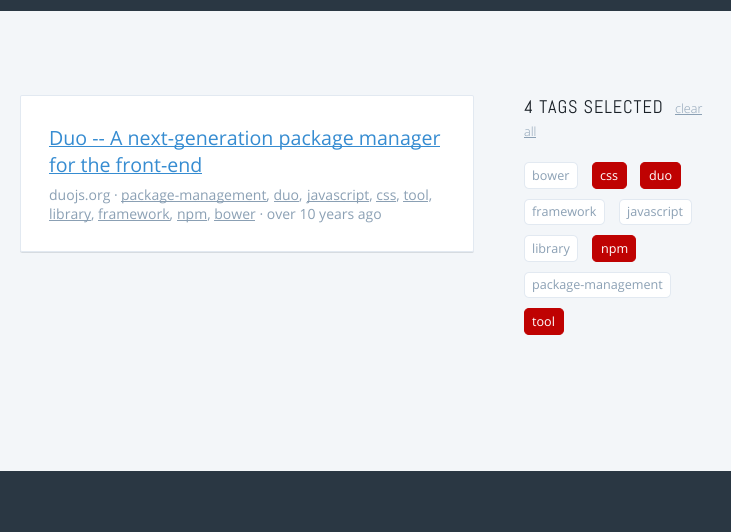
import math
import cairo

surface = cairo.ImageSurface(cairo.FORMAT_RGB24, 731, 532)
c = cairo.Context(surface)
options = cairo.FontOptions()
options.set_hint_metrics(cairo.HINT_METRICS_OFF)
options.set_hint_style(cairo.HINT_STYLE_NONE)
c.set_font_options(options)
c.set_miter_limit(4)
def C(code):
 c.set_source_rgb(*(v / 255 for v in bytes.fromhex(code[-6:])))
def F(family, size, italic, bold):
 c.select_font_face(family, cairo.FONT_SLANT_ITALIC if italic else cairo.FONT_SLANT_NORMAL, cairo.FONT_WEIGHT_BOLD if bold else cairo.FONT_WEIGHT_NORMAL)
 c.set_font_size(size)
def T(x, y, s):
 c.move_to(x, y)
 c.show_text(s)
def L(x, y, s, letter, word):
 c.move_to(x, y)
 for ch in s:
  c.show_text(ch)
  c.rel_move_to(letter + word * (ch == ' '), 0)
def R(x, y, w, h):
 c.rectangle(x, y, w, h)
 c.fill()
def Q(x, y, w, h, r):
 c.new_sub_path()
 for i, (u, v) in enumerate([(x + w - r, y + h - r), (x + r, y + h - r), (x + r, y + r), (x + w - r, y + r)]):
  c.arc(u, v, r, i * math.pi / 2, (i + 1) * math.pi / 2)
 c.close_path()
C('2a3743')
c.paint()
C('f3f6f9')
R(0,11,731,460)
C('d6dbe0')
c.new_path()
c.move_to(20,250)
c.line_to(20,252)
c.line_to(22,253)
c.line_to(472,253)
c.curve_to(474,253,474,251,474,250)
c.curve_to(474,251,473,252,472,252)
c.line_to(22,252)
c.curve_to(21,252,20,251,20,250)
c.close_path()
c.fill()
C('ffffff')
Q(20.5,95.5,453,156,1.5)
c.fill_preserve()
C('e2e9f1')
c.set_line_width(1)
c.stroke()
C('368cd1')
R(49,146,391,1)
F('Open Sans',19.6,0,0)
T(49,145,'Duo -- A next-generation package manager')
T(49,172,'for the front-end')
R(49,173,153,1)
F('Open Sans',14,0,0)
C('8ba0b4')
T(49,200,'duojs.org ·')
R(121,201,146,1)
T(121,200,'package-management, duo,')
R(307,201,62,1)
T(307,200,'javascript, css, tool,')
R(274,201,25,1)
R(376,201,20,1)
R(403,201,25,1)
R(49,220,42,1)
T(49,219,'library, framework,')
R(177,220,30,1)
T(177,219,'npm, bower · over 10 years ago')
R(98,220,72,1)
R(214,220,41,1)
F('Abel',18.25,0,0)
C('192027')
L(524,113,'4 TAGS SELECTED',.9,0)
F('Open Sans Light',12.6,0,0)
C('8ba0b4')
T(675,113,'clear')
R(675,114,27,1)
T(524,136,'all')
R(524,137,12,1)
C('ffffff')
Q(524.5,162.5,53,26,4.5)
c.fill_preserve()
C('e2e9f1')
c.stroke()
F('Open Sans',12.6,0,0)
C('8ba0b4')
T(532,180,'bower')
C('bf0202')
Q(592.5,162.5,34,26,4.5)
c.fill_preserve()
c.stroke()
C('ffffff')
T(600,180,'css')
C('bf0202')
Q(640.5,162.5,40,26,4.5)
c.fill_preserve()
c.stroke()
C('ffffff')
T(649,180,'duo')
Q(524.5,199.5,80,25,4.5)
c.fill_preserve()
C('e2e9f1')
c.stroke()
C('8ba0b4')
T(532,216,'framework')
C('ffffff')
Q(619.5,199.5,72,25,4.5)
c.fill_preserve()
C('e2e9f1')
c.stroke()
C('8ba0b4')
T(627,216,'javascript')
C('ffffff')
Q(524.5,235.5,53,26,4.5)
c.fill_preserve()
C('e2e9f1')
c.stroke()
C('8ba0b4')
T(532,253,'library')
C('bf0202')
Q(592.5,235.5,43,26,4.5)
c.fill_preserve()
c.stroke()
C('ffffff')
T(601,253,'npm')
Q(524.5,272.5,146,25,4.5)
c.fill_preserve()
C('e2e9f1')
c.stroke()
C('8ba0b4')
T(532,289,'package-management')
C('bf0202')
Q(524.5,308.5,39,26,4.5)
c.fill_preserve()
c.stroke()
C('ffffff')
T(532,326,'tool')
surface.write_to_png('o.png')
